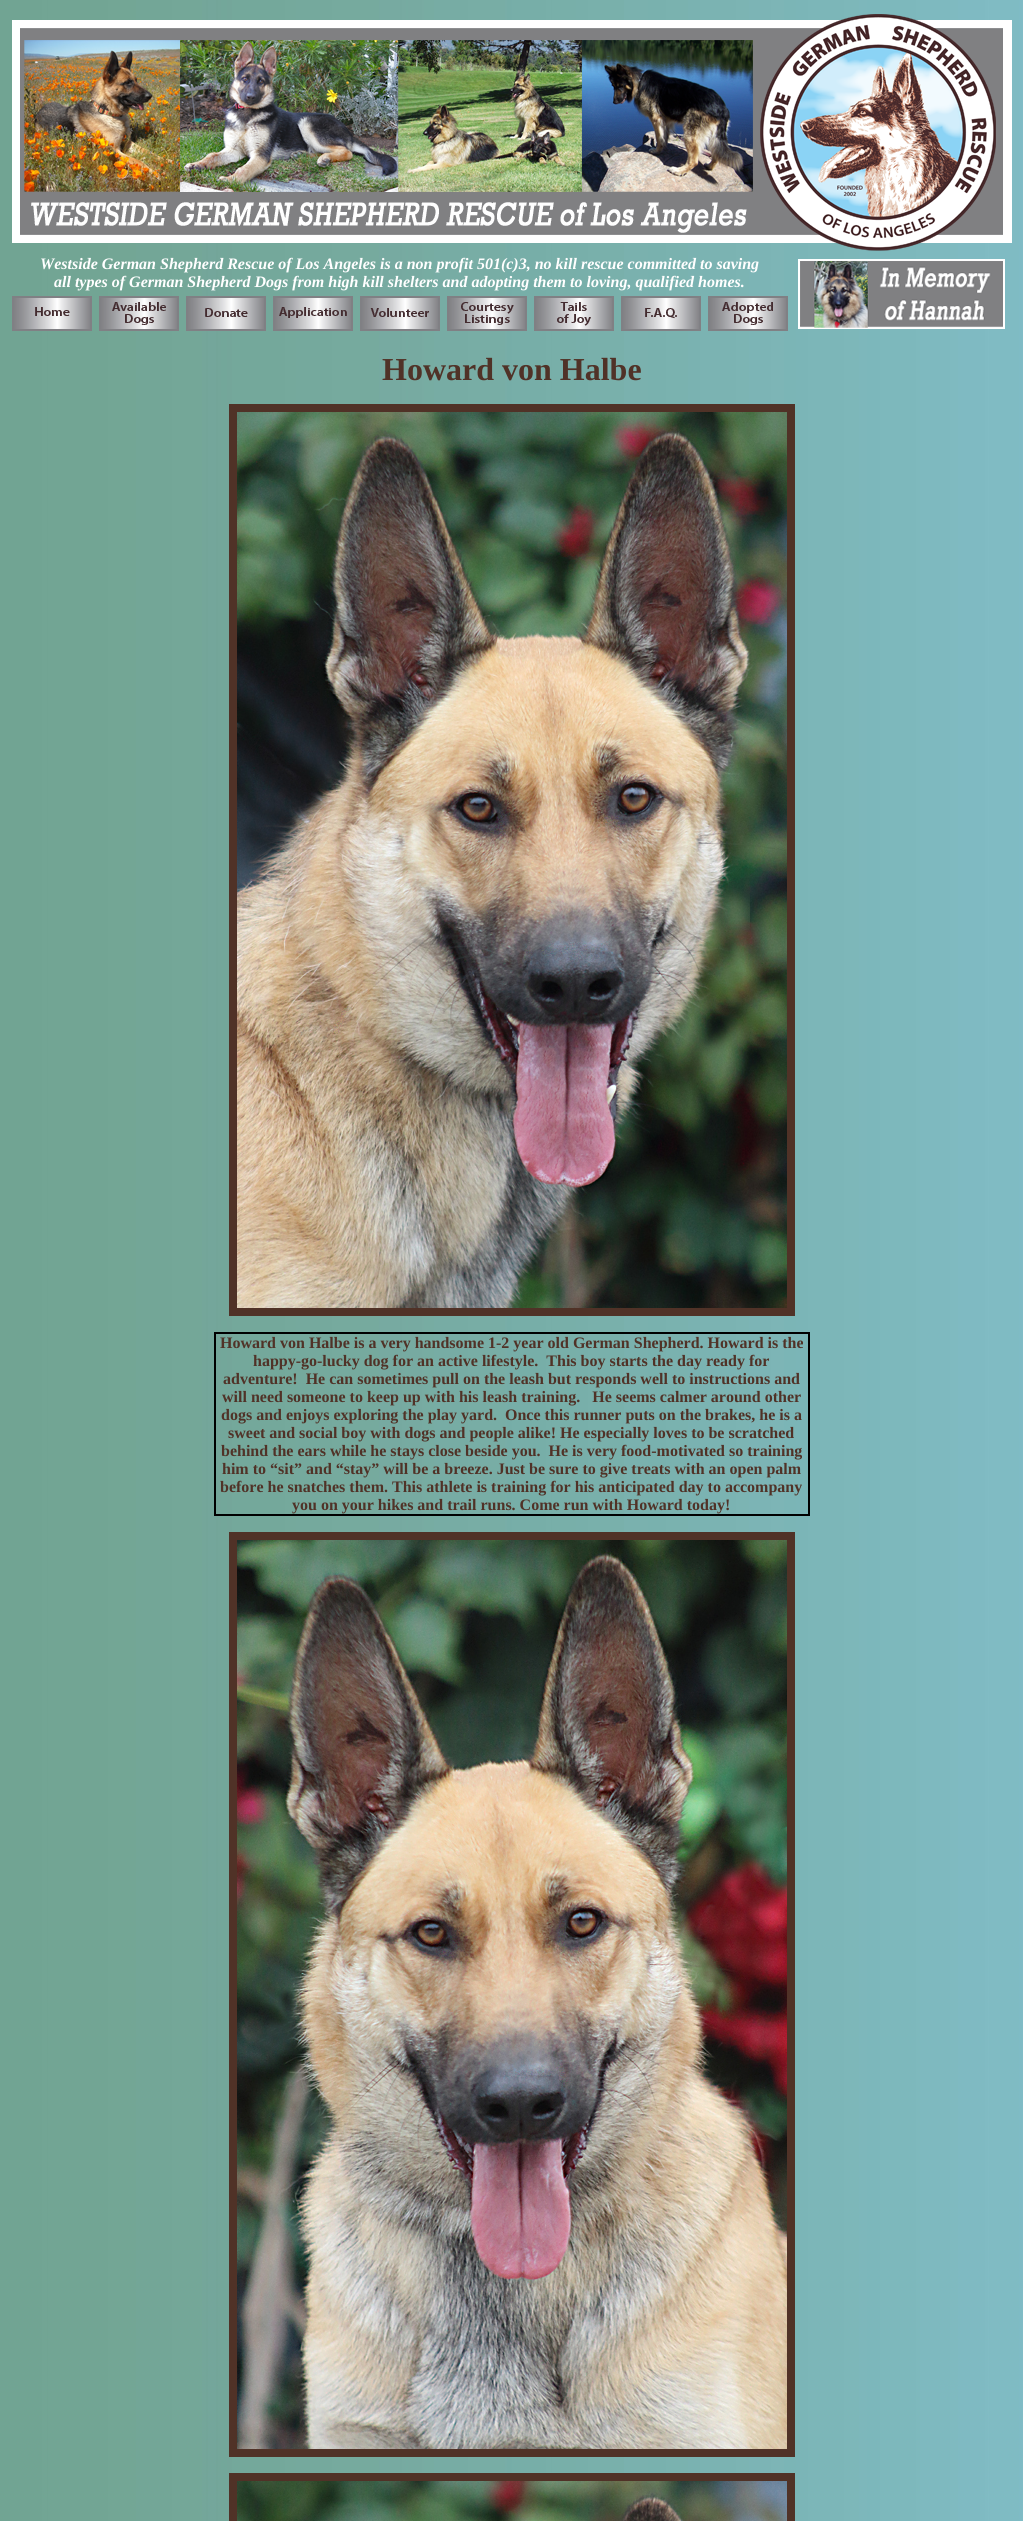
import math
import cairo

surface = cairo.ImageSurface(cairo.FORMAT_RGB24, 1023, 2521)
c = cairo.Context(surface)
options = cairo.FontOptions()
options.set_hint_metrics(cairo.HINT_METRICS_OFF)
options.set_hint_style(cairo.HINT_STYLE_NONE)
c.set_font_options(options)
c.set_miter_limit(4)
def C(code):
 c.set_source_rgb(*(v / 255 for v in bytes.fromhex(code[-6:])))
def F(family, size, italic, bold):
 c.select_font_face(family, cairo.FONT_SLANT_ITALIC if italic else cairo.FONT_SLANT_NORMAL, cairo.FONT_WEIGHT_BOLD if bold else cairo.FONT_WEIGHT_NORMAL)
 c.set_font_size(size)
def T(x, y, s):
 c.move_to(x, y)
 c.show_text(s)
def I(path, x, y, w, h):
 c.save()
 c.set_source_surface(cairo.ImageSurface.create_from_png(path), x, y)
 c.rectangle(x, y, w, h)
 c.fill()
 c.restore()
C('ffffff')
c.paint()
I('1.png',0,0,1023,2521)
I('2.png',12,14,1000,237)
F('Liberation Serif',16,1,1)
C('ffffff')
T(40,269,'Westside German Shepherd Rescue of Los Angeles is a non profit 501(c)3, no kill rescue committed to saving')
T(54,287,'all types of German Shepherd Dogs from high kill shelters and adopting them to loving, qualified homes.')
I('3.png',798,259,207,70)
I('4.png',12,296,80,35)
I('5.png',99,296,80,35)
I('6.png',186,296,80,35)
I('7.png',273,296,80,35)
I('8.png',360,296,80,35)
I('9.png',447,296,80,35)
I('10.png',534,296,80,35)
I('11.png',621,296,80,35)
I('12.png',708,296,80,35)
F('Liberation Serif',32,0,1)
C('503227')
T(382,380,'Howard von Halbe')
c.rectangle(233,408,558,904)
c.set_line_width(8)
c.stroke()
I('13.png',237,412,550,896)
c.rectangle(214.5,1332.5,595,183)
C('000000')
c.set_line_width(1)
c.stroke()
c.rectangle(215.5,1333.5,593,181)
c.stroke()
F('Liberation Serif',16,0,1)
C('503227')
T(220,1348,'Howard von Halbe is a very handsome 1-2 year old German Shepherd. Howard is the')
T(253,1366,'happy-go-lucky dog for an active lifestyle.  This boy starts the day ready for')
T(223,1384,'adventure!  He can sometimes pull on the leash but responds well to instructions and')
T(222,1402,'will need someone to keep up with his leash training.   He seems calmer around other')
T(221,1420,'dogs and enjoys exploring the play yard.')
T(505,1420,'Once this runner puts on the brakes, he is a')
T(228,1438,'sweet and social boy with dogs and people alike! He especially loves to be scratched')
T(221,1456,'behind the ears while he stays close beside you.  He is very food-motivated so training')
T(222,1474,'him to “sit” and “stay” will be a breeze. Just be sure to give treats with an open palm')
T(220,1492,'before he snatches them. This athlete is training for his anticipated day to accompany')
T(292,1510,'you on your hikes and trail runs. Come run with Howard today!')
c.rectangle(233,1536,558,917)
c.set_line_width(8)
c.stroke()
I('14.png',237,1540,550,909)
c.rectangle(233,2477,558,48)
c.stroke()
I('15.png',237,2481,550,40)
surface.write_to_png('o.png')
